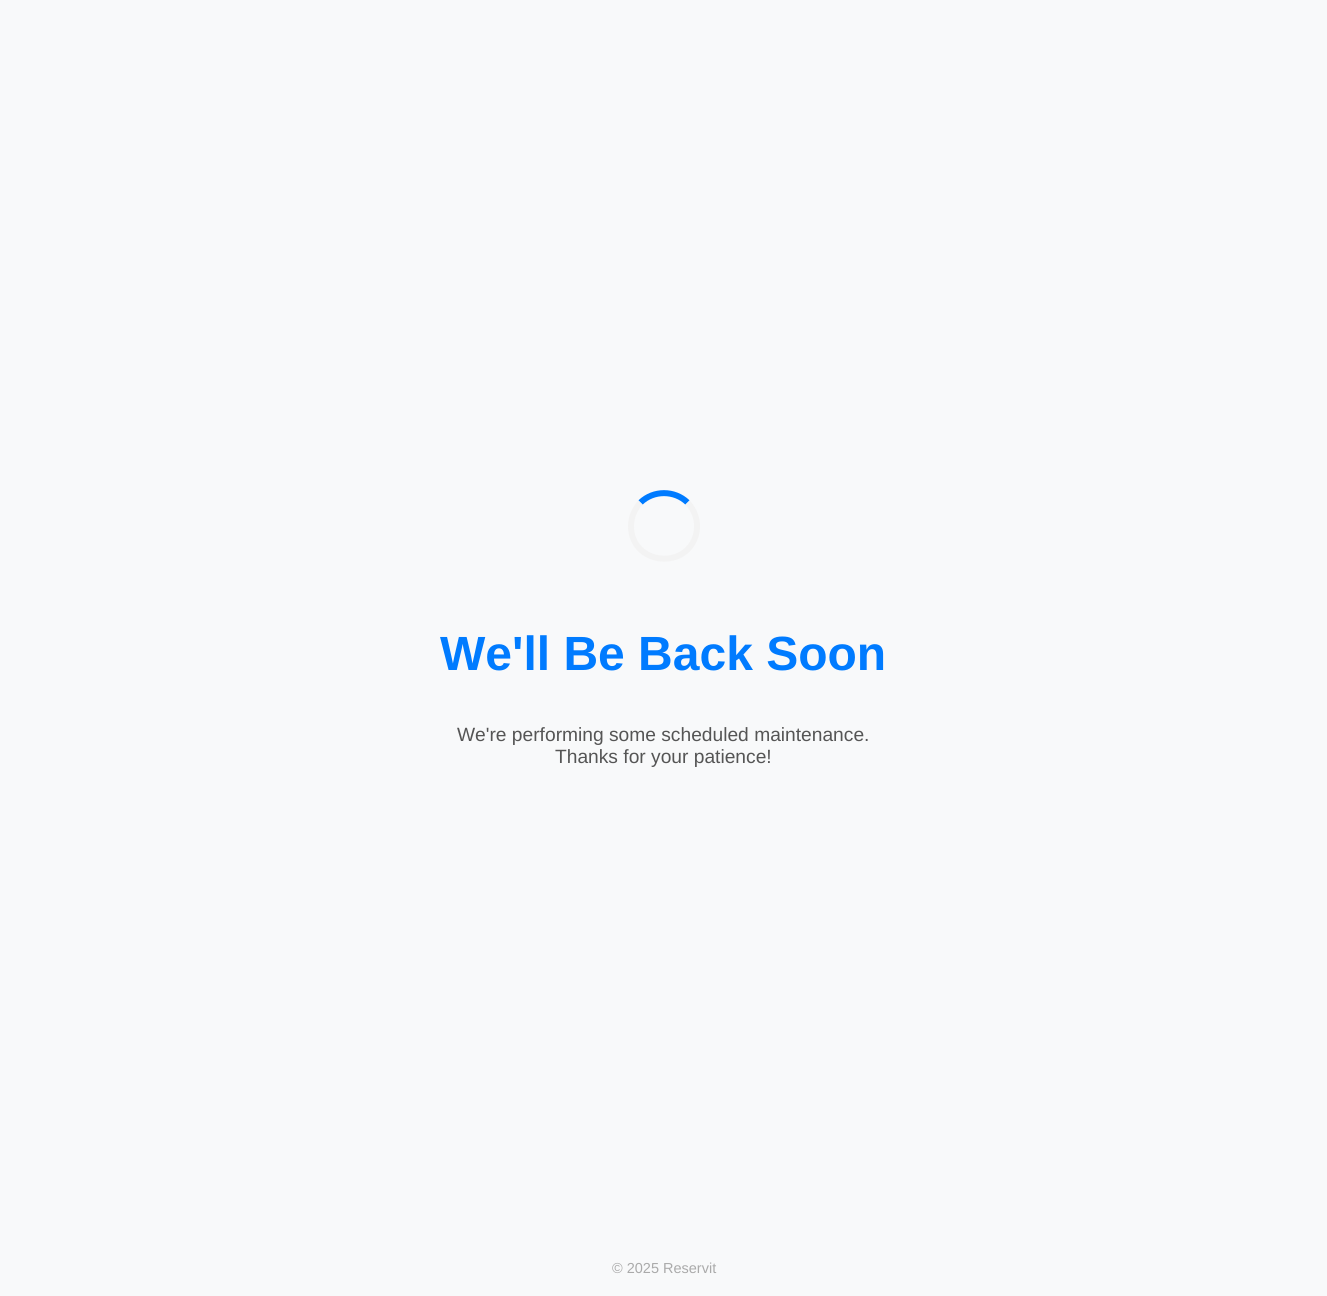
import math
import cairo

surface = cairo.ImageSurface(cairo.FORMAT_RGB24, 1327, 1296)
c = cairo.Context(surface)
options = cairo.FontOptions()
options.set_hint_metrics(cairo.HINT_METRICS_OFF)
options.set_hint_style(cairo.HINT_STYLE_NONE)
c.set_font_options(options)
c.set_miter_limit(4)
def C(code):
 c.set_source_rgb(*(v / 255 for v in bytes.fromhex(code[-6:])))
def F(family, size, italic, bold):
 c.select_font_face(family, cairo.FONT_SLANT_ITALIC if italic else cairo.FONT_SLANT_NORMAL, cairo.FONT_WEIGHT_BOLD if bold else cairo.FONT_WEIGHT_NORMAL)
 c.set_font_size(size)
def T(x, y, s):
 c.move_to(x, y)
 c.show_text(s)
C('f8f9fa')
c.paint()
c.new_path()
c.move_to(640.5,502.5)
c.curve_to(653.5,490,674.5,490,687.5,502.5)
C('007bff')
c.set_line_width(6)
c.stroke()
c.new_path()
c.move_to(687.5,502.5)
c.curve_to(695,510.5,698.5,521.5,696.5,532.5)
c.curve_to(688.5,571,631,565.5,631,526)
c.curve_to(631,517.5,634.5,509,640.5,502.5)
C('f3f3f3')
c.stroke()
F('Liberation Sans',48,0,1)
C('007bff')
T(440,670,'We\'ll Be Back Soon')
F('Liberation Sans',19.2,0,0)
C('555555')
T(457,741,'We\'re performing some scheduled maintenance.')
T(555,763,'Thanks for your patience!')
F('Liberation Sans',14.5,0,0)
C('aaaaaa')
T(612,1273,'© 2025 Reservit')
surface.write_to_png('o.png')
